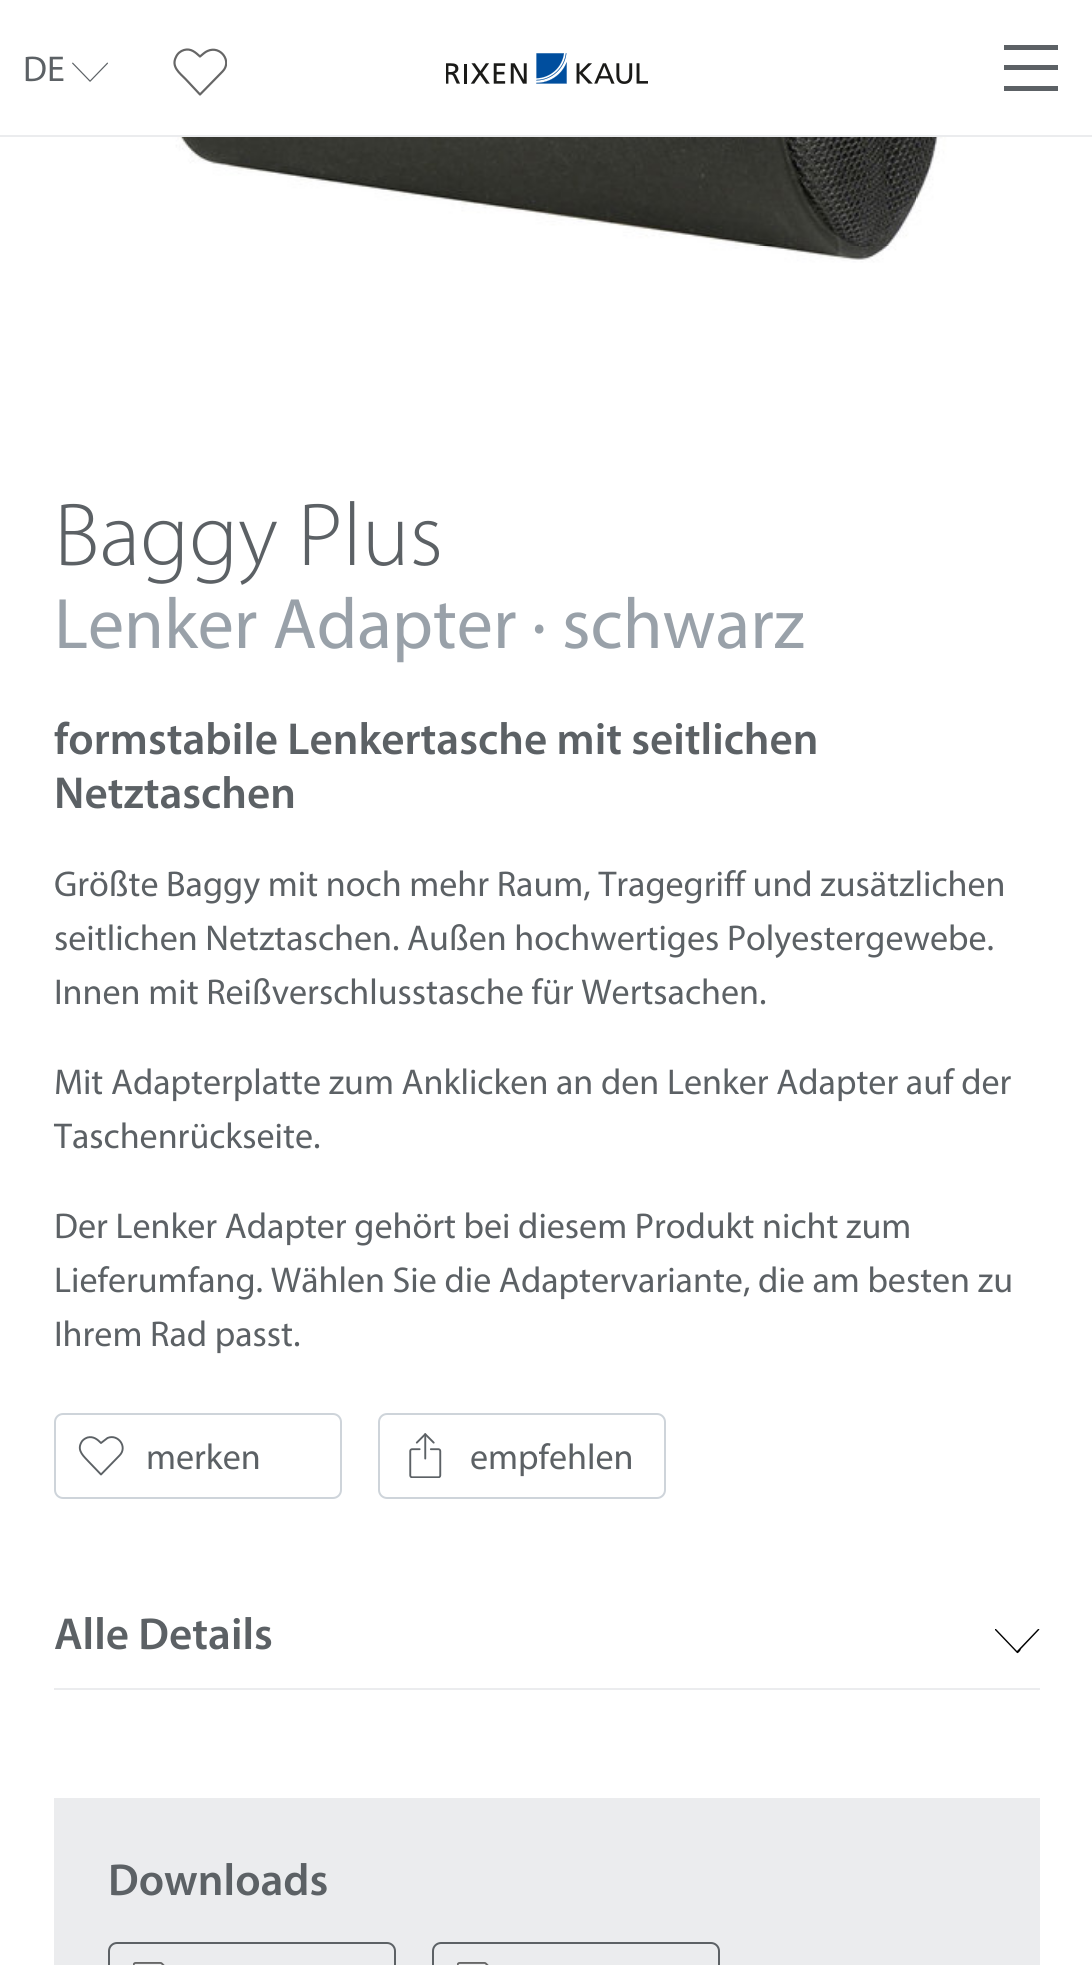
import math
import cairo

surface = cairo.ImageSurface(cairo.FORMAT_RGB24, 1092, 1965)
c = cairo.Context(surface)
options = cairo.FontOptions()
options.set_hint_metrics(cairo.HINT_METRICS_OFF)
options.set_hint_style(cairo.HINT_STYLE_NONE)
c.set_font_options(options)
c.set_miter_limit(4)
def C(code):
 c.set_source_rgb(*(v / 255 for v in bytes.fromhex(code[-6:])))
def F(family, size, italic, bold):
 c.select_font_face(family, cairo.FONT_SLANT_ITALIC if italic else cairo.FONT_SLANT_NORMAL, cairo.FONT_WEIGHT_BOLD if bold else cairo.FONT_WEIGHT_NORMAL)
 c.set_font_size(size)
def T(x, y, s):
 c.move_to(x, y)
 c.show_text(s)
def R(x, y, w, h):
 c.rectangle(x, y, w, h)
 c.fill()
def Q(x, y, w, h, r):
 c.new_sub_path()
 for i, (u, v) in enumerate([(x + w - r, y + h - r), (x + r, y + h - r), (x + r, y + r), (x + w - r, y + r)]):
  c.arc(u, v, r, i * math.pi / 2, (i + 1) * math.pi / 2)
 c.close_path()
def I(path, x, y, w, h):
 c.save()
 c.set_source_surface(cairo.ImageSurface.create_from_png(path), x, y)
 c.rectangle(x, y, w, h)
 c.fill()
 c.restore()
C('ffffff')
c.paint()
C('ebecee')
R(0,135,1092,2)
F('Myriad',36,0,0)
C('5c6165')
T(23,81,'DE')
I('1.png',72,62,36,20)
c.save()
c.rectangle(173,45,54,54)
c.clip()
c.new_path()
c.move_to(200,94.5)
c.line_to(185.5,79)
c.curve_to(179.5,73,171,66.5,176,57)
c.curve_to(177.5,53.5,180.5,51,184,50)
c.curve_to(191,48,195.5,52.5,200,56.5)
c.curve_to(202.5,54.5,205,52,207.5,51)
c.curve_to(220.5,45,232.5,61.5,222.5,71.5)
c.close_path()
C('666666')
c.set_line_width(2.2)
c.set_line_cap(cairo.LINE_CAP_ROUND)
c.set_line_join(cairo.LINE_JOIN_ROUND)
c.stroke()
c.restore()
I('2.png',446,53,202,31)
R(1004,65,54,5)
R(1004,45,54,5)
R(1004,86,54,5)
F('Myriad Light',90,0,0)
T(54,565,'Baggy Plus')
F('Myriad',72,0,0)
C('99a1a9')
T(54,648,'Lenker Adapter · schwarz')
F('Myriad SemiBold',45,0,0)
C('5c6165')
T(54,754,'formstabile Lenkertasche mit seitlichen')
T(54,808,'Netztaschen')
F('Myriad',36,0,0)
T(54,896,'Größte Baggy mit noch mehr Raum, Tragegriff und zusätzlichen')
T(54,950,'seitlichen Netztaschen. Außen hochwertiges Polyestergewebe.')
T(54,1004,'Innen mit Reißverschlusstasche für Wertsachen.')
T(54,1094,'Mit Adapterplatte zum Anklicken an den Lenker Adapter auf der')
T(54,1148,'Taschenrückseite.')
T(54,1238,'Der Lenker Adapter gehört bei diesem Produkt nicht zum')
T(54,1292,'Lieferumfang. Wählen Sie die Adaptervariante, die am besten zu')
T(54,1346,'Ihrem Rad passt.')
Q(55,1414,286,84,8)
C('ced4da')
c.stroke()
c.new_path()
c.move_to(101,1474.5)
c.line_to(89,1462)
c.curve_to(84,1456.5,77,1451,81,1443)
c.curve_to(82,1440.5,84.5,1438.5,87.5,1437.5)
c.curve_to(93.5,1436,97.5,1439.5,101,1443)
c.line_to(107.5,1438)
c.curve_to(118,1433.5,128,1447,119.5,1455.5)
c.close_path()
C('5c6165')
c.set_line_width(1.9)
c.set_line_cap(cairo.LINE_CAP_ROUND)
c.set_line_join(cairo.LINE_JOIN_ROUND)
c.stroke()
T(146,1469,'merken')
Q(379,1414,286,84,8)
C('ced4da')
c.set_line_width(2)
c.set_line_cap(cairo.LINE_CAP_BUTT)
c.set_line_join(cairo.LINE_JOIN_MITER)
c.stroke()
I('3.png',409,1433,33,45)
C('5c6165')
T(470,1469,'empfehlen')
C('ebecee')
R(54,1688,986,2)
F('Myriad SemiBold',45,0,0)
C('5c6165')
T(54,1649,'Alle Details')
C('000000')
c.new_path()
c.move_to(1038,1629)
c.line_to(1017,1651)
c.line_to(996,1629)
c.line_to(995,1629)
c.line_to(995,1630)
c.line_to(1017,1653)
c.curve_to(1018,1654,1021,1650,1021,1649)
c.line_to(1039,1630)
c.curve_to(1040,1629,1039,1629,1038,1629)
c.close_path()
c.fill()
I('4.png',151,137,796,126)
C('ebecee')
R(54,1798,986,167)
C('5c6165')
T(108,1895,'Downloads')
Q(109,1943,286,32,8)
c.stroke()
I('5.png',133,1962,32,3)
Q(433,1943,286,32,8)
c.stroke()
I('5.png',457,1962,32,3)
surface.write_to_png('o.png')
